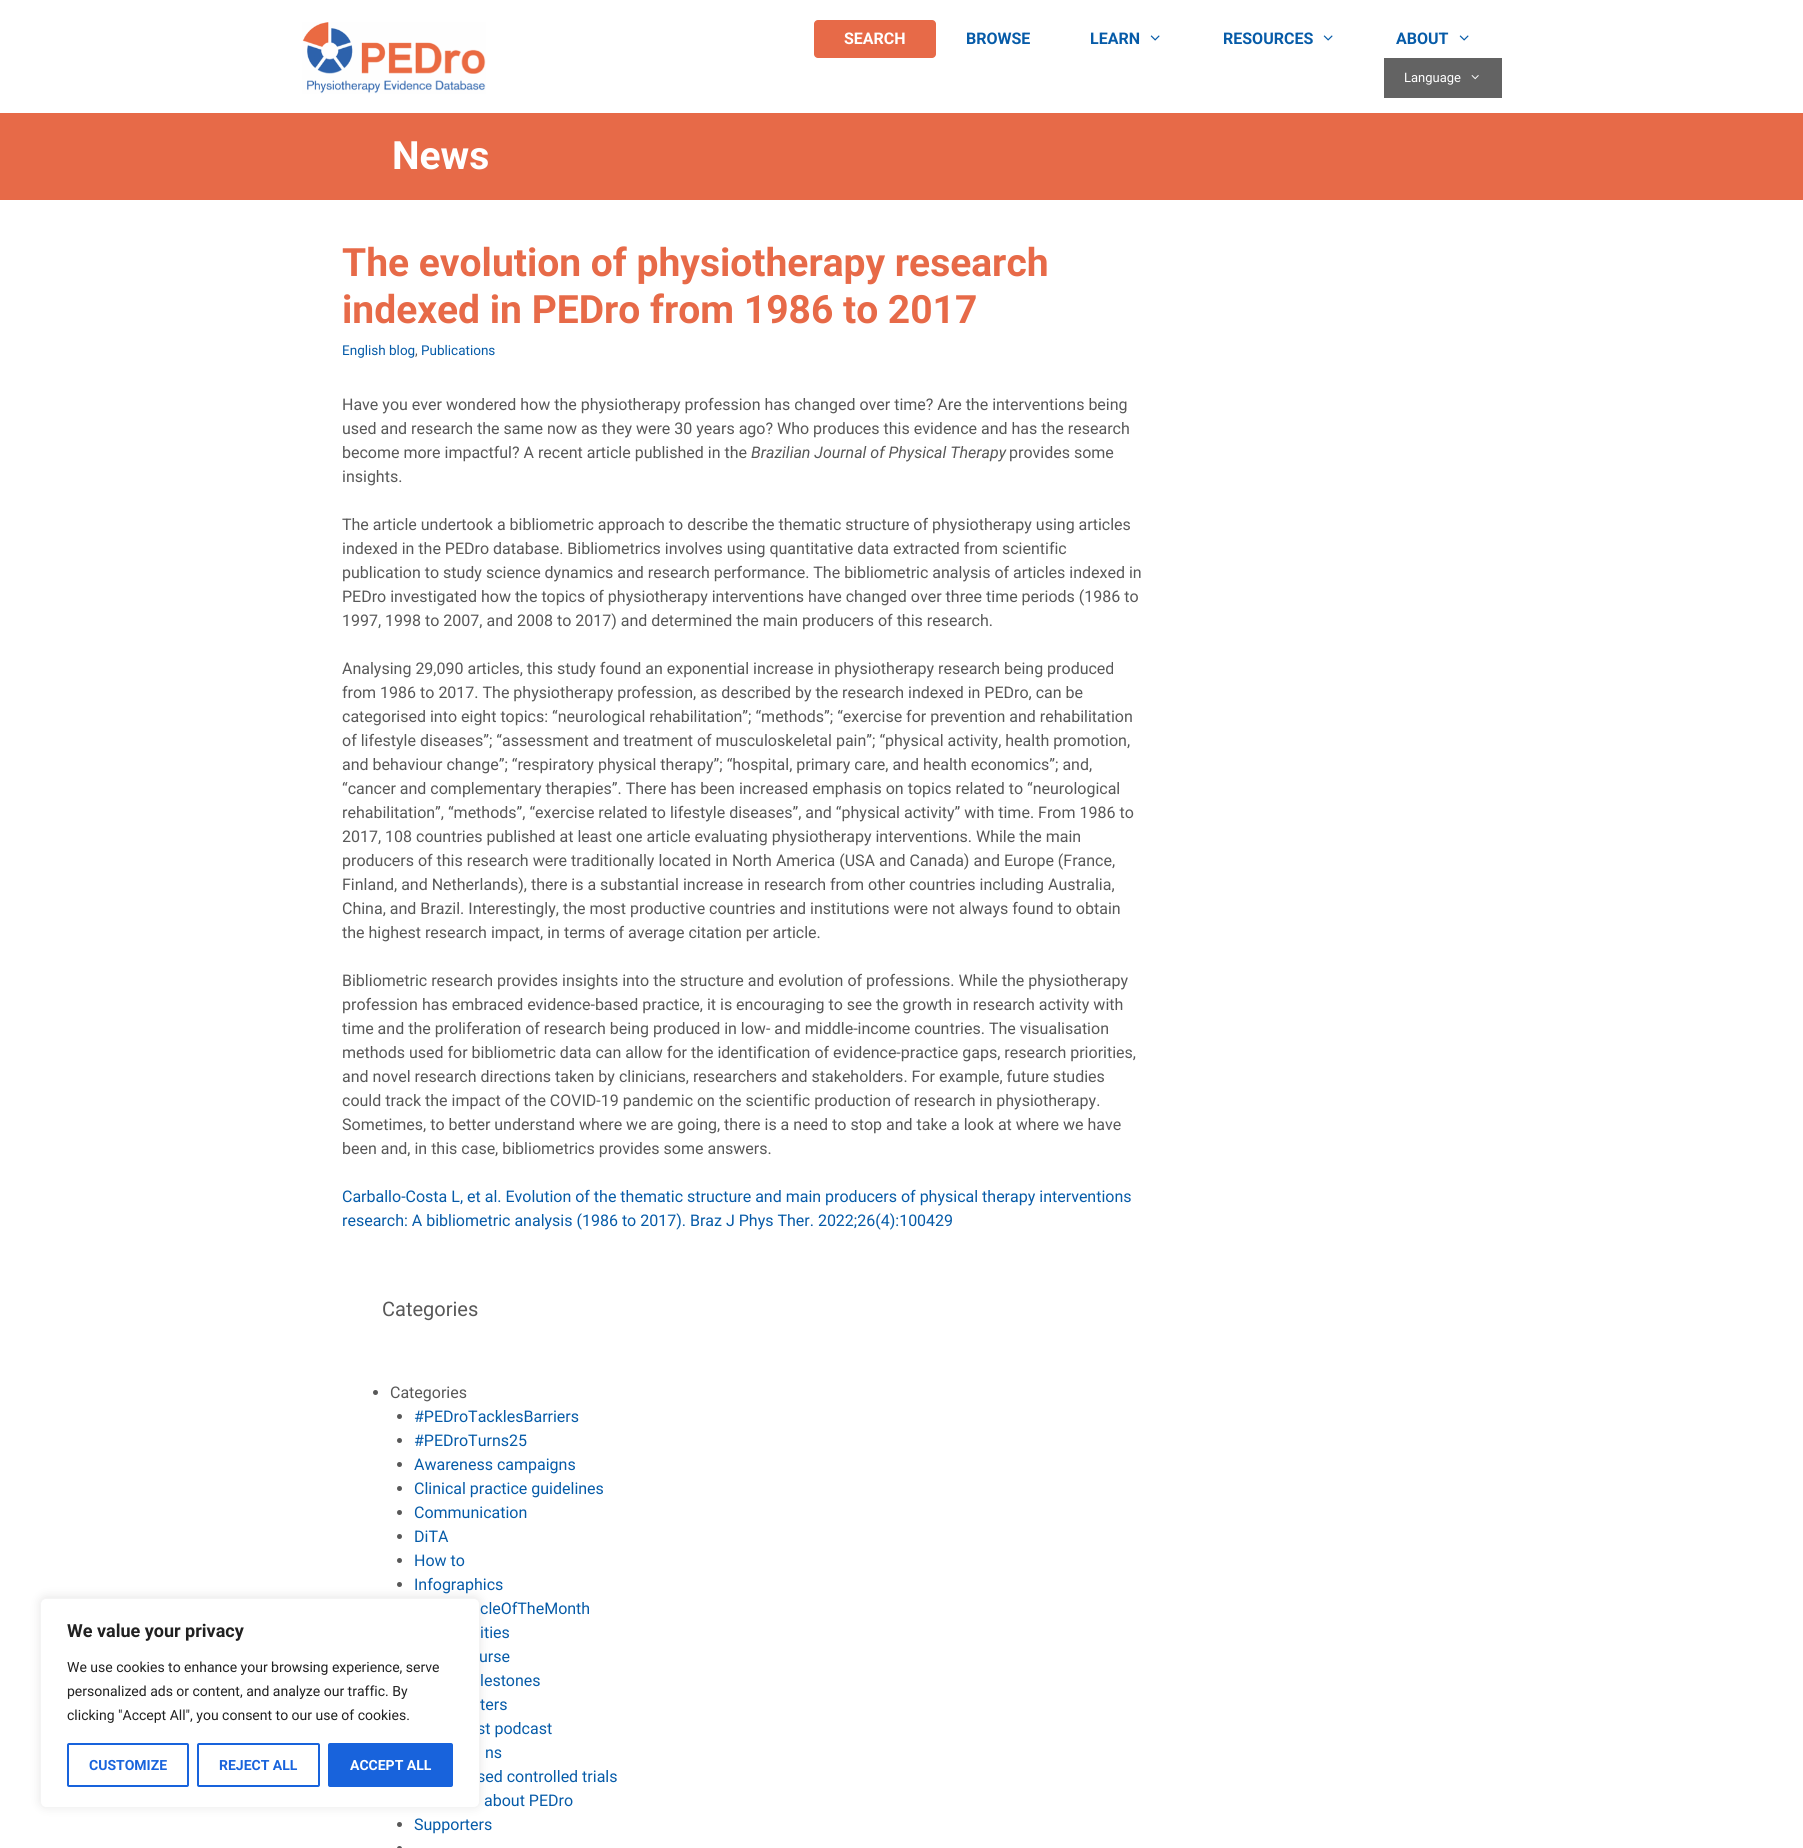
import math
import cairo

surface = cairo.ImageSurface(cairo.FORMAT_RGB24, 1803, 1848)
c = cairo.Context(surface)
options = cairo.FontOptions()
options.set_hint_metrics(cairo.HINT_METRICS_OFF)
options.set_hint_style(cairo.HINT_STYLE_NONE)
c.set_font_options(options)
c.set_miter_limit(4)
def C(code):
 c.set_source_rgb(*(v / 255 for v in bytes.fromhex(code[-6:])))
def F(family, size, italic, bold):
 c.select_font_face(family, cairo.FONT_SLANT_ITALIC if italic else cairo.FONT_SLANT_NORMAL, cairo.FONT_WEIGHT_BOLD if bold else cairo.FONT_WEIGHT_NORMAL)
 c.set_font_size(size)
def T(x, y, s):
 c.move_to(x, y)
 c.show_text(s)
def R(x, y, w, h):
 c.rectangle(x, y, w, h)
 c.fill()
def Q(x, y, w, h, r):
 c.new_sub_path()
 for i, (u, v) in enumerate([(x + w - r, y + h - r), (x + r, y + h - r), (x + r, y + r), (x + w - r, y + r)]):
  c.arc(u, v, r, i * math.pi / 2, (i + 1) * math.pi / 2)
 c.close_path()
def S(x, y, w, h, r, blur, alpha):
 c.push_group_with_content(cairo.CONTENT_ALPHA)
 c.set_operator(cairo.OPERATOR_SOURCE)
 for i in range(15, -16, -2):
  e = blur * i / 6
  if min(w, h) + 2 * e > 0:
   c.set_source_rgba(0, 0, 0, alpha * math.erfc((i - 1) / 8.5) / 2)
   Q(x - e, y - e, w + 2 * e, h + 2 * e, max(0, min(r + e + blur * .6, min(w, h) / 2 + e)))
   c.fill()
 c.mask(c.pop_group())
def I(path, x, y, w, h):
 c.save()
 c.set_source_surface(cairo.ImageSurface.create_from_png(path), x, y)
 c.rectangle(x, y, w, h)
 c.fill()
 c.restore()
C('ffffff')
c.paint()
I('1.png',302,22,184,72)
C('e76a48')
Q(814,20,122,38,4)
c.fill()
F('Roboto',16,0,1)
C('ffffff')
T(844,44,'SEARCH')
C('065ba8')
T(966,44,'BROWSE')
T(1090,44,'LEARN')
I('2.png',1150,35,10,6)
T(1223,44,'RESOURCES')
I('2.png',1323,35,10,6)
T(1396,44,'ABOUT')
I('2.png',1459,35,10,6)
C('636363')
R(1384,58,118,40)
F('Roboto',13,0,0)
C('ffffff')
T(1404,82,'Language')
I('3.png',1471,75,8,5)
C('e76a48')
R(0,113,1803,87)
F('Roboto',39,0,1)
C('ffffff')
T(392,169,'News')
C('585858')
c.new_path()
c.arc(399.5,1584.5,2.5,0,2 * math.pi)
c.fill()
c.arc(399.5,1824.5,2.5,0,2 * math.pi)
c.fill()
C('acabab')
S(40,1597,440,210,6,5,.3)
F('Roboto',16,0,0)
C('065ba8')
T(477,1734,'st podcast')
T(477,1782,'sed controlled trials')
C('ffffff')
Q(40.5,1598.5,439,209,5.5)
c.fill_preserve()
C('f4f4f4')
c.set_line_width(1)
c.stroke()
F('Roboto',18,0,1)
C('212121')
T(67,1637,'We value your privacy')
F('Roboto',14,0,0)
T(67,1672,'We use cookies to enhance your browsing experience, serve')
T(67,1696,'personalized ads or content, and analyze our traffic. By')
T(67,1720,'clicking "Accept All", you consent to our use of cookies.')
Q(68,1744,120,42,1)
C('1863dc')
c.set_line_width(2)
c.stroke()
F('Roboto',14,0,1)
T(89,1770,'CUSTOMIZE')
Q(198,1744,121,42,1)
c.stroke()
T(219,1770,'REJECT ALL')
Q(329,1744,123,42,1)
c.fill_preserve()
c.stroke()
C('ffffff')
T(350,1770,'ACCEPT ALL')
F('Roboto',39,0,1)
C('e76a48')
T(342,276,'The evolution of physiotherapy research')
T(342,323,'indexed in PEDro from 1986 to 2017')
F('Roboto',13.5,0,0)
C('065ba8')
T(342,355,'English blog')
C('585858')
T(415,355,',')
C('065ba8')
T(421,355,'Publications')
F('Roboto',16,0,0)
C('585858')
T(342,410,'Have you ever wondered how the physiotherapy profession has changed over time? Are the interventions being')
T(342,434,'used and research the same now as they were 30 years ago? Who produces this evidence and has the research')
T(342,458,'become more impactful? A recent article published in the')
F('Roboto',16,1,0)
T(751,458,'Brazilian Journal of Physical Therapy')
F('Roboto',16,0,0)
T(1009,458,'provides some')
T(342,482,'insights.')
T(342,530,'The article undertook a bibliometric approach to describe the thematic structure of physiotherapy using articles')
T(342,554,'indexed in the PEDro database. Bibliometrics involves using quantitative data extracted from scientific')
T(342,578,'publication to study science dynamics and research performance. The bibliometric analysis of articles indexed in')
T(342,602,'PEDro investigated how the topics of physiotherapy interventions have changed over three time periods (1986 to')
T(342,626,'1997, 1998 to 2007, and 2008 to 2017) and determined the main producers of this research.')
T(342,674,'Analysing 29,090 articles, this study found an exponential increase in physiotherapy research being produced')
T(342,698,'from 1986 to 2017. The physiotherapy profession, as described by the research indexed in PEDro, can be')
T(342,722,'categorised into eight topics: “neurological rehabilitation”; “methods”; “exercise for prevention and rehabilitation')
T(342,746,'of lifestyle diseases”; “assessment and treatment of musculoskeletal pain”; “physical activity, health promotion,')
T(342,770,'and behaviour change”; “respiratory physical therapy”; “hospital, primary care, and health economics”; and,')
T(342,794,'“cancer and complementary therapies”. There has been increased emphasis on topics related to “neurological')
T(342,818,'rehabilitation”, “methods”, “exercise related to lifestyle diseases”, and “physical activity” with time. From 1986 to')
T(342,842,'2017, 108 countries published at least one article evaluating physiotherapy interventions. While the main')
T(342,866,'producers of this research were traditionally located in North America (USA and Canada) and Europe (France,')
T(342,890,'Finland, and Netherlands), there is a substantial increase in research from other countries including Australia,')
T(342,914,'China, and Brazil. Interestingly, the most productive countries and institutions were not always found to obtain')
T(342,938,'the highest research impact, in terms of average citation per article.')
T(342,986,'Bibliometric research provides insights into the structure and evolution of professions. While the physiotherapy')
T(342,1010,'profession has embraced evidence-based practice, it is encouraging to see the growth in research activity with')
T(342,1034,'time and the proliferation of research being produced in low- and middle-income countries. The visualisation')
T(342,1058,'methods used for bibliometric data can allow for the identification of evidence-practice gaps, research priorities,')
T(342,1082,'and novel research directions taken by clinicians, researchers and stakeholders. For example, future studies')
T(342,1106,'could track the impact of the COVID-19 pandemic on the scientific production of research in physiotherapy.')
T(342,1130,'Sometimes, to better understand where we are going, there is a need to stop and take a look at where we have')
T(342,1154,'been and, in this case, bibliometrics provides some answers.')
C('065ba8')
T(342,1202,'Carballo-Costa L, et al. Evolution of the thematic structure and main producers of physical therapy interventions')
T(342,1226,'research: A bibliometric analysis (1986 to 2017). Braz J Phys Ther. 2022;26(4):100429')
F('Roboto',20,0,0)
C('585858')
T(382,1316,'Categories')
c.new_path()
c.arc(375.5,1392.5,2.5,0,2 * math.pi)
c.fill()
F('Roboto',16,0,0)
T(390,1398,'Categories')
c.new_path()
c.arc(399.5,1416.5,2.5,0,2 * math.pi)
c.fill()
C('065ba8')
T(414,1422,'#PEDroTacklesBarriers')
C('585858')
c.new_path()
c.arc(399.5,1440.5,2.5,0,2 * math.pi)
c.fill()
C('065ba8')
T(414,1446,'#PEDroTurns25')
C('585858')
c.new_path()
c.arc(399.5,1464.5,2.5,0,2 * math.pi)
c.fill()
C('065ba8')
T(414,1470,'Awareness campaigns')
C('585858')
c.new_path()
c.arc(399.5,1488.5,2.5,0,2 * math.pi)
c.fill()
C('065ba8')
T(414,1494,'Clinical practice guidelines')
C('585858')
c.new_path()
c.arc(399.5,1512.5,2.5,0,2 * math.pi)
c.fill()
C('065ba8')
T(414,1518,'Communication')
C('585858')
c.new_path()
c.arc(399.5,1536.5,2.5,0,2 * math.pi)
c.fill()
C('065ba8')
T(414,1542,'DiTA')
C('585858')
c.new_path()
c.arc(399.5,1560.5,2.5,0,2 * math.pi)
c.fill()
C('065ba8')
T(414,1566,'How to')
T(414,1590,'Infographics')
T(480,1614,'cleOfTheMonth')
T(480,1638,'ities')
T(479,1662,'urse')
T(480,1686,'lestones')
T(480,1710,'ters')
T(485,1758,'ns')
T(484,1806,'about PEDro')
T(414,1830,'Supporters')
C('585858')
c.new_path()
c.arc(399.5,1848.5,2.5,0,2 * math.pi)
c.fill()
surface.write_to_png('o.png')
